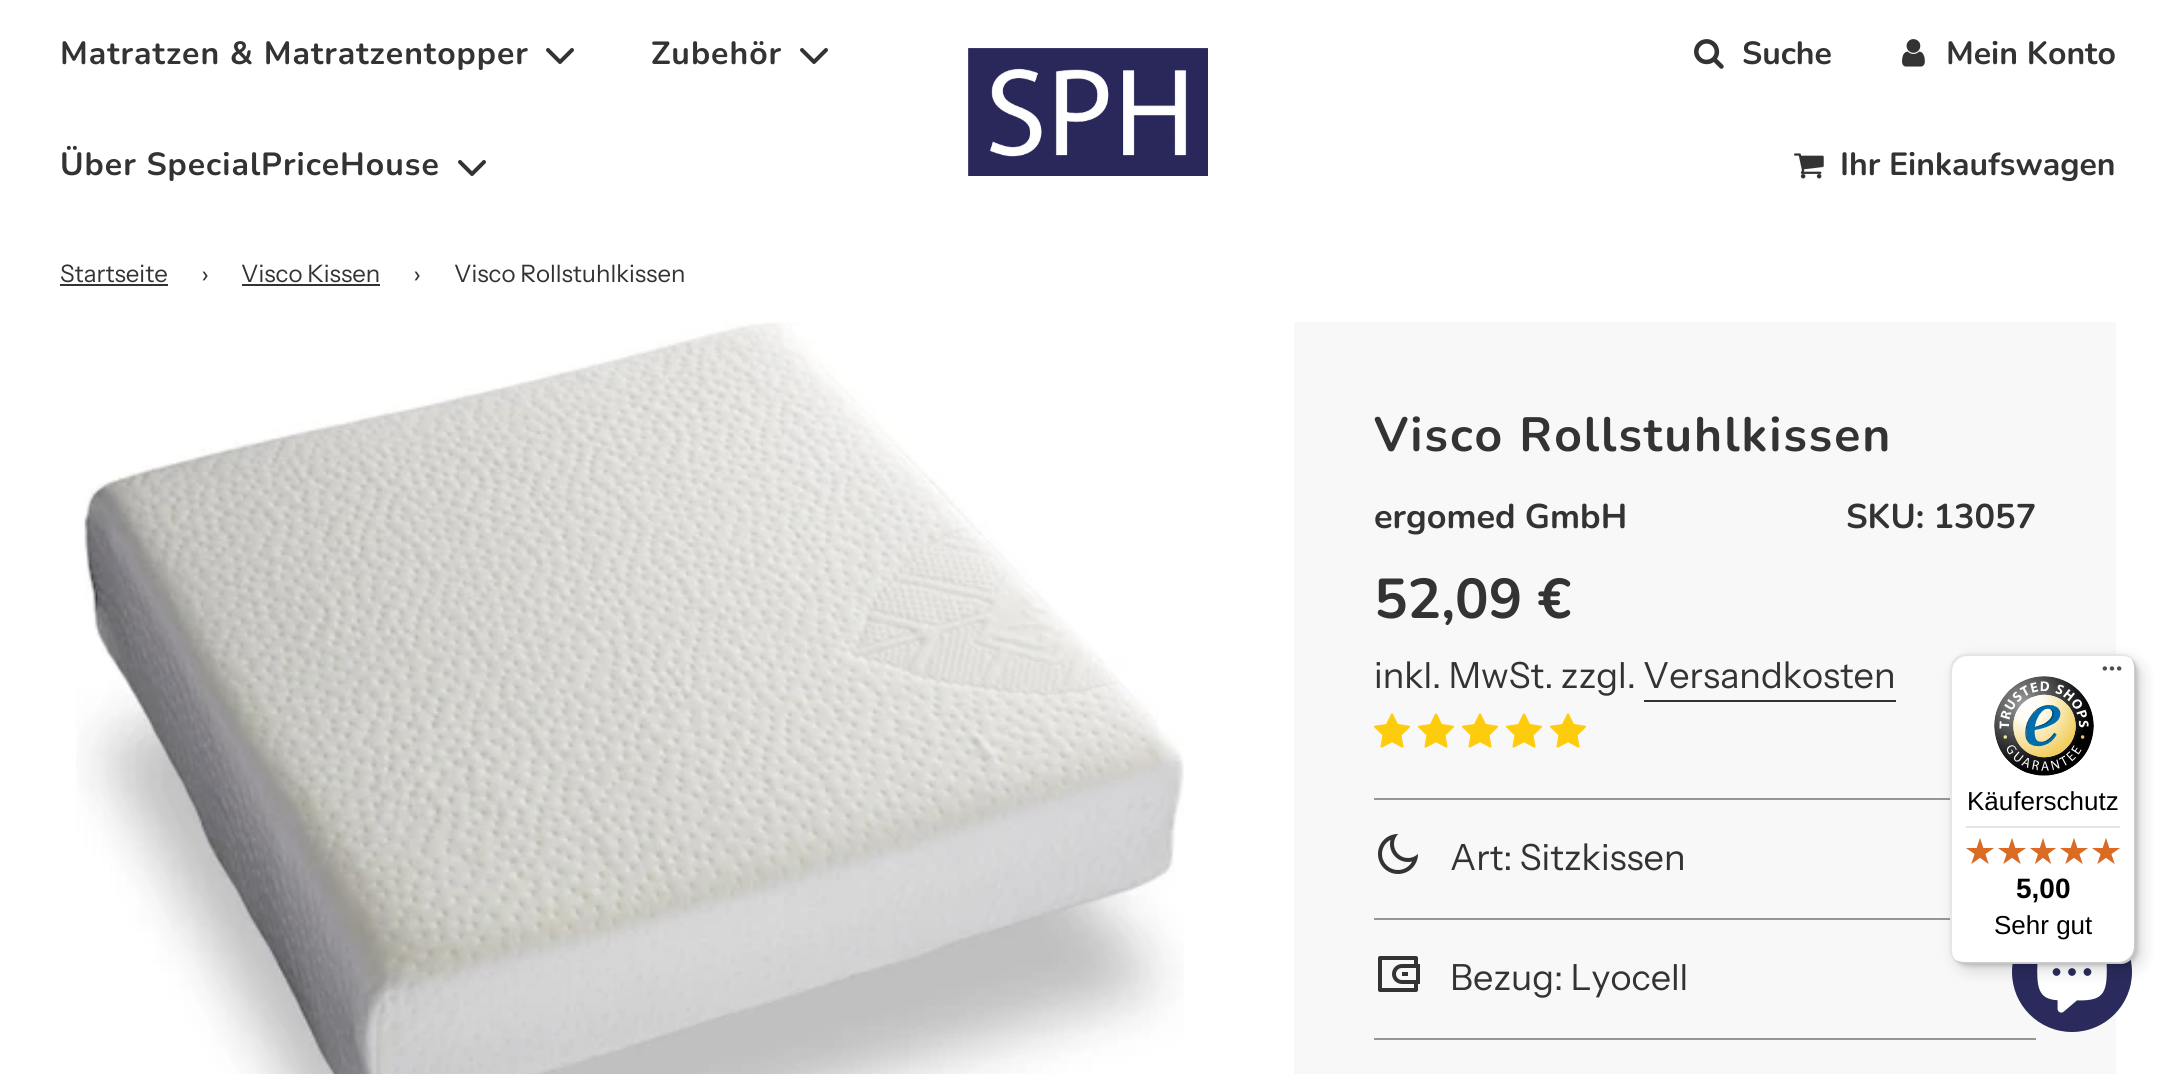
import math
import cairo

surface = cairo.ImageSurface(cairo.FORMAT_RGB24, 2175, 1074)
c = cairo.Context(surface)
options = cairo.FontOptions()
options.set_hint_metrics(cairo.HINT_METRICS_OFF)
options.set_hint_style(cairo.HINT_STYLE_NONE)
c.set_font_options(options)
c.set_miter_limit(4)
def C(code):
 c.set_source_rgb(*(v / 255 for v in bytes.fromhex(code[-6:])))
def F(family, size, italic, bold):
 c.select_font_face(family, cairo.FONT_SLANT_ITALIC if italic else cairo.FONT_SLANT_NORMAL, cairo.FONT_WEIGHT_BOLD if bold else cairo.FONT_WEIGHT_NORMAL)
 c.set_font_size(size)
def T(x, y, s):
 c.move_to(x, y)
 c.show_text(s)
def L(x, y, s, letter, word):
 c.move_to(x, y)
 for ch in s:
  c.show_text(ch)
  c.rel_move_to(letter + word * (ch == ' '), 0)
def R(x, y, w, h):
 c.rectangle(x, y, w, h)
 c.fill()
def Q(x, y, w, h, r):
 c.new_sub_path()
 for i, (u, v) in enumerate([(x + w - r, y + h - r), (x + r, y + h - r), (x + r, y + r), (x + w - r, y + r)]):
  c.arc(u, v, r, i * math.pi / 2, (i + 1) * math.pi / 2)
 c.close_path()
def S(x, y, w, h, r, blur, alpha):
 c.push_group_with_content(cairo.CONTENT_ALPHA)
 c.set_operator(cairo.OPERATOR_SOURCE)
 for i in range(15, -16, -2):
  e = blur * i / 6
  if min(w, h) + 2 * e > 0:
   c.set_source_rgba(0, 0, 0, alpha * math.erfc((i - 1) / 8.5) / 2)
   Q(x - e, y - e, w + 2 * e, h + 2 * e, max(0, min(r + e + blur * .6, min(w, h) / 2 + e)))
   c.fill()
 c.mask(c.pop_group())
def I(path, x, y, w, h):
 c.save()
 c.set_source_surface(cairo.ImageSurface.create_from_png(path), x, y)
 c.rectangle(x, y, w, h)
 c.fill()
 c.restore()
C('ffffff')
c.paint()
F('Nunito',32,0,1)
C('333333')
L(60,64,'Matratzen & Matratzentopper',1,0)
c.new_path()
c.move_to(548,50)
c.line_to(560,62)
c.line_to(572,50)
c.set_line_width(4)
c.set_line_cap(cairo.LINE_CAP_ROUND)
c.set_line_join(cairo.LINE_JOIN_ROUND)
c.stroke()
L(651,64,'Zubehör',1,0)
c.new_path()
c.move_to(802,50)
c.line_to(814,62)
c.line_to(826,50)
c.stroke()
L(60,175,'Über SpecialPriceHouse',1,0)
c.new_path()
c.move_to(460,162)
c.line_to(472,174)
c.line_to(484,162)
c.stroke()
I('1.png',968,48,240,128)
I('2.png',1694,39,30,30)
T(1742,64,'Suche')
I('3.png',1902,39,23,28)
T(1946,64,'Mein Konto')
I('4.png',1794,153,30,26)
T(1840,175,'Ihr Einkaufswagen')
F('Instrument Sans',24,0,0)
T(60,282,'Startseite')
R(60,284,108,2)
T(201,282,'›')
T(241,282,'Visco Kissen')
R(242,284,138,2)
T(413,282,'›')
T(454,282,'Visco Rollstuhlkissen')
I('5.png',76,322,1108,752)
C('f8f8f8')
R(1294,322,822,752)
F('Nunito',48,0,1)
C('333333')
L(1374,451,'Visco Rollstuhlkissen',2,0)
F('Nunito',34.25,0,1)
T(1374,528,'ergomed GmbH')
T(1846,528,'SKU: 13057')
F('Nunito',56,0,1)
T(1374,618,'52,09 €')
F('Instrument Sans',36,0,0)
T(1374,688,'inkl. MwSt. zzgl. Versandkosten')
R(1644,700,252,2)
I('6.png',1374,713,36,35)
I('6.png',1418,713,36,35)
I('6.png',1462,713,36,35)
I('6.png',1506,713,36,35)
I('6.png',1550,713,36,35)
C('969696')
R(1374,798,576,2)
R(1374,918,576,2)
I('7.png',1378,834,40,40)
C('333333')
T(1450,870,'Art: Sitzkissen')
C('969696')
R(1374,1038,662,2)
I('8.png',1378,956,42,36)
C('333333')
T(1450,990,'Bezug: Lyocell')
C('2a2b5c')
c.new_path()
c.arc(2072,972,60,0,2 * math.pi)
c.fill()
I('15.png',2037,964,70,49)
C('000000')
S(1956,660,186,310,16,8,.15)
S(1952,656,186,310,16,2,.15)
C('ffffff')
Q(1950,654,186,310,16)
c.fill()
c.set_source_rgba(0,0,0,0.1)
c.new_path()
c.move_to(1968,656)
c.line_to(2122,656)
c.curve_to(2126,656,2129,657,2132,659)
c.curve_to(2129,656,2125,654,2120,654)
c.line_to(1966,654)
c.curve_to(1957,654,1950,661,1950,670)
c.line_to(1950,948)
c.curve_to(1950,953,1952,957,1955,960)
c.curve_to(1953,957,1952,954,1952,950)
c.line_to(1952,672)
c.curve_to(1952,663,1959,656,1968,656)
c.close_path()
c.fill()
c.set_source_rgba(0,0,0,0.2)
c.new_path()
c.move_to(1954,959)
c.curve_to(1957,962,1961,964,1966,964)
c.line_to(2120,964)
c.curve_to(2129,964,2136,957,2136,948)
c.line_to(2136,670)
c.curve_to(2136,665,2134,661,2131,658)
c.curve_to(2133,661,2134,664,2134,668)
c.line_to(2134,946)
c.curve_to(2134,955,2127,962,2118,962)
c.line_to(1964,962)
c.curve_to(1960,962,1957,961,1954,959)
c.close_path()
c.fill()
c.set_source_rgba(0.196,0.196,0.196,0.2)
c.new_path()
c.move_to(1955,959)
c.curve_to(1958,962,1962,964,1966,964)
c.line_to(2120,964)
c.curve_to(2129,964,2136,957,2136,948)
c.line_to(2136,670)
c.curve_to(2136,666,2134,662,2131,659)
c.curve_to(2134,662,2135,665,2135,669)
c.line_to(2135,947)
c.curve_to(2135,956,2128,963,2119,963)
c.line_to(1965,963)
c.curve_to(1961,963,1958,962,1955,959)
c.close_path()
c.fill()
c.set_source_rgba(1,1,1,0.3)
c.new_path()
c.move_to(1955,959)
c.curve_to(1958,962,1962,964,1966,964)
c.line_to(2120,964)
c.curve_to(2129,964,2136,957,2136,948)
c.line_to(2136,670)
c.curve_to(2136,666,2134,662,2131,659)
c.curve_to(2134,662,2135,665,2135,669)
c.line_to(2135,947)
c.curve_to(2135,956,2128,963,2119,963)
c.line_to(1965,963)
c.curve_to(1961,963,1958,962,1955,959)
c.close_path()
c.fill()
I('9.png',2102,666,20,5)
I('10.png',1994,676,100,100)
F('Liberation Sans',26,0,0)
C('000000')
T(1967,810,'Käuferschutz')
C('e5e5e5')
R(1966,826,154,2)
I('11.png',1966,838,28,26)
I('11.png',1998,838,28,26)
I('12.png',2030,838,26,26)
I('11.png',2060,838,28,26)
I('11.png',2092,838,28,26)
I('13.png',1966,838,28,26)
I('13.png',1998,838,28,26)
I('14.png',2030,838,26,26)
I('13.png',2060,838,28,26)
I('13.png',2092,838,28,26)
F('Liberation Sans',28,0,1)
C('000000')
T(2016,898,'5,00')
F('Liberation Sans',26,0,0)
T(1994,934,'Sehr gut')
surface.write_to_png('o.png')
